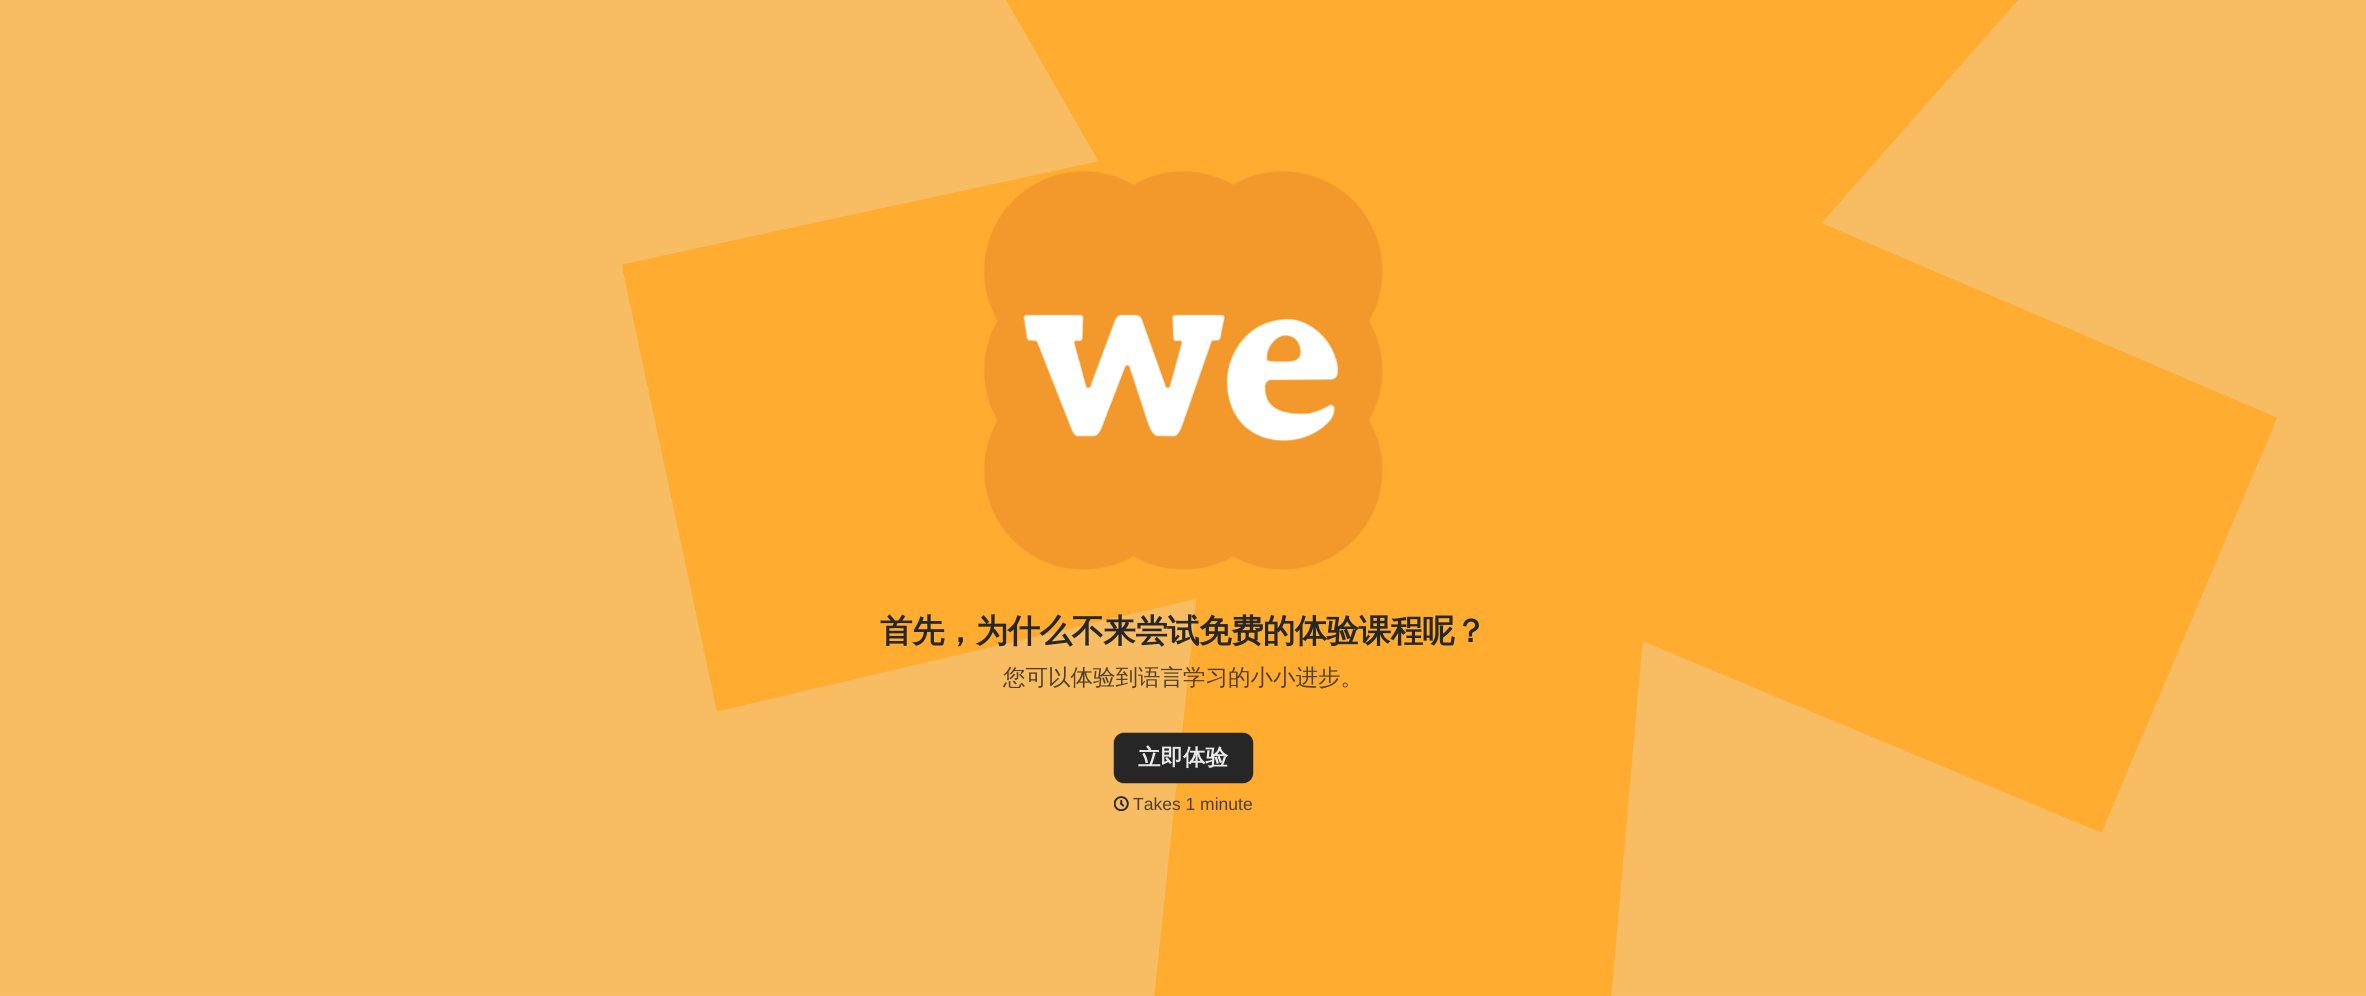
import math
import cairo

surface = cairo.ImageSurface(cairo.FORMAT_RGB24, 2366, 996)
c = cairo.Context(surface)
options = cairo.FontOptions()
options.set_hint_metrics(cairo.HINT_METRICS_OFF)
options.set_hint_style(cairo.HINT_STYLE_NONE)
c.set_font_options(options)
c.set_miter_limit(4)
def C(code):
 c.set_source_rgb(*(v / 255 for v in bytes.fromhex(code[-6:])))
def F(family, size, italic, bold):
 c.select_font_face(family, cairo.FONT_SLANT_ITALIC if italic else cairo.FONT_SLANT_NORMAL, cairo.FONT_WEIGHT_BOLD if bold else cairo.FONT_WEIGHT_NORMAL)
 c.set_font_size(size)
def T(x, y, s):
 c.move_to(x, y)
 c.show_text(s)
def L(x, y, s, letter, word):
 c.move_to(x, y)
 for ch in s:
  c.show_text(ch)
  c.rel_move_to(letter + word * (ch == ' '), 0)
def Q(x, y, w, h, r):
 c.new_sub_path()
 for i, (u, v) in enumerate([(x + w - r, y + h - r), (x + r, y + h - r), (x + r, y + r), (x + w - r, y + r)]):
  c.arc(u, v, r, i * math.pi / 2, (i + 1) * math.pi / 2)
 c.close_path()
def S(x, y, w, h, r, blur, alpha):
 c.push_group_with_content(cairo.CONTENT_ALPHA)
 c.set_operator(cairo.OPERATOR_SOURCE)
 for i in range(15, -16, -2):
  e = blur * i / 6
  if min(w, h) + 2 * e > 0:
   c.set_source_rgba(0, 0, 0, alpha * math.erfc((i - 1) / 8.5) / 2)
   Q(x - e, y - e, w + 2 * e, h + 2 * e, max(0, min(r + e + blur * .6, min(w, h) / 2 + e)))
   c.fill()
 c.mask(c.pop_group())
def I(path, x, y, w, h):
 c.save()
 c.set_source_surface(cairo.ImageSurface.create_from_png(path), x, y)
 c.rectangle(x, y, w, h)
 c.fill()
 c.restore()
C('ffffff')
c.paint()
I('1.png',0,0,2366,996)
I('2.png',984,171,399,399)
F('WenQuanYi Zen Hei',32.5,0,1)
C('272727')
L(880,642,'首先，为什么不来尝试免费的体验课程呢？',-.6,0)
F('WenQuanYi Zen Hei Medium',22.5,0,0)
C('514028')
T(1003,685,'您可以体验到语言学习的小小进步。')
C('f6a42b')
S(1114,733,139,50,10,.5,.3)
Q(1114.5,733.5,138,49,9.5)
C('262627')
c.set_line_width(1)
c.stroke()
C('262627')
S(1114,733,139,50,10,.5,1)
F('WenQuanYi Zen Hei',22.5,0,1)
C('e8e8e8')
T(1138,765,'立即体验')
I('3.png',1114,796,15,15)
F('Arimo',17.5,0,0)
C('514028')
T(1133,810,'Takes 1 minute')
surface.write_to_png('o.png')
